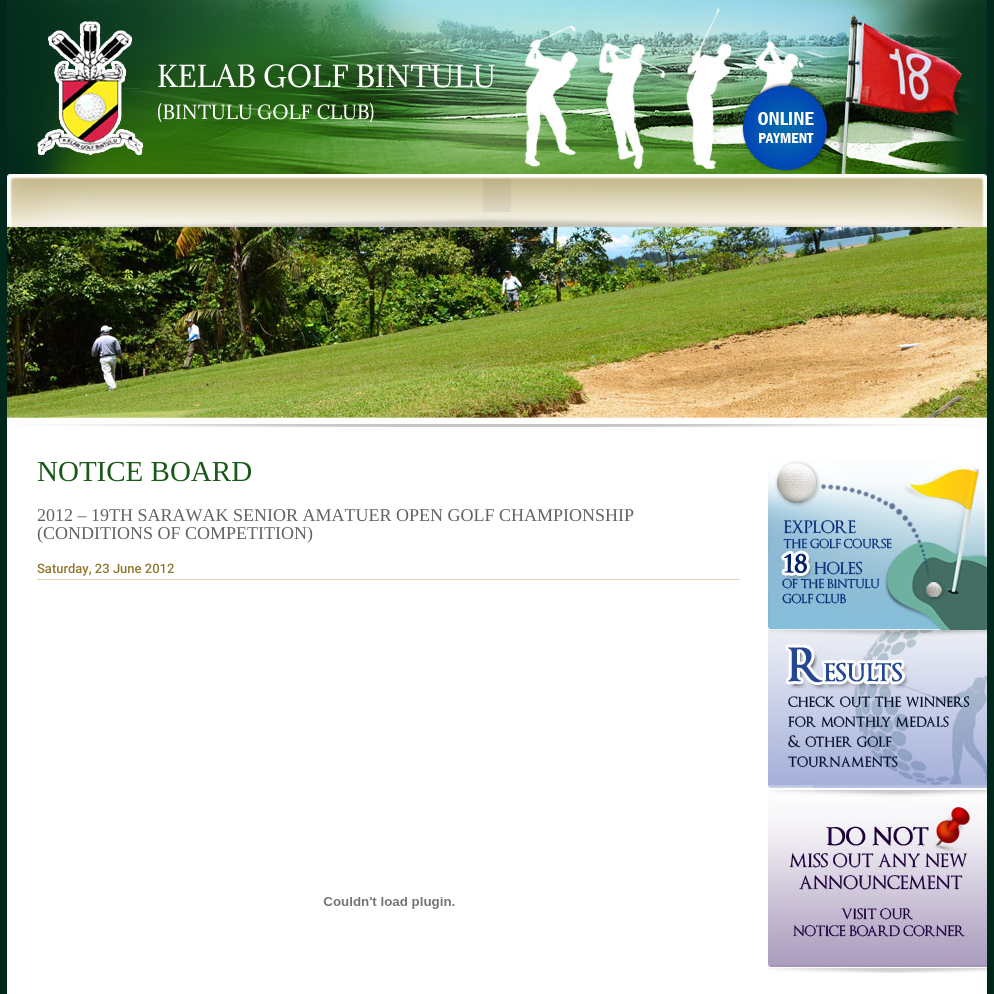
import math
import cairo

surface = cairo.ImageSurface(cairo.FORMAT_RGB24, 994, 994)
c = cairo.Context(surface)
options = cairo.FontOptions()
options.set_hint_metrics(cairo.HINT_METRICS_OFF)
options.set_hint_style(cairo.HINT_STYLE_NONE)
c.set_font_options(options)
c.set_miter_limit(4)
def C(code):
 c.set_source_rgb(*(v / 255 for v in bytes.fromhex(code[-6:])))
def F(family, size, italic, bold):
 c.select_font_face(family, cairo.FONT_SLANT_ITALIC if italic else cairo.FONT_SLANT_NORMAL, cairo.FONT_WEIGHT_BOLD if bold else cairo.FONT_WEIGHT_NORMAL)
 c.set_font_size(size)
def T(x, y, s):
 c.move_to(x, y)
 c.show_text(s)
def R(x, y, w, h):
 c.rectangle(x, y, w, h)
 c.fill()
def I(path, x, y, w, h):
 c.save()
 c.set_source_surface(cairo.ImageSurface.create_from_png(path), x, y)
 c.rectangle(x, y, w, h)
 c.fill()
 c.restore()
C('01271a')
c.paint()
I('1.png',7,0,980,174)
F('Adamina',28,0,0)
C('ffffff')
T(157,87,'KELAB GOLF BINTULU')
F('Adamina',18,0,0)
T(157,119,'(BINTULU GOLF CLUB)')
I('2.png',7,174,980,53)
c.set_source_rgba(0,0,0,0.05)
R(483,179,28,33)
I('3.png',7,227,980,200)
C('ffffff')
R(7,427,980,567)
F('Liberation Serif',29,0,0)
C('1b591a')
T(37,481,'NOTICE BOARD')
F('Liberation Serif',18,0,0)
C('626262')
T(37,521,'2012 – 19TH SARAWAK SENIOR AMATUER OPEN GOLF CHAMPIONSHIP')
T(37,539,'(CONDITIONS OF COMPETITION)')
C('e0d4b4')
R(37,579,703,1)
F('Roboto Medium',13,0,0)
C('92772f')
T(37,573,'Saturday, 23 June 2012')
I('4.png',323,897,132,12)
I('5.png',767,460,220,170)
I('6.png',767,630,220,160)
I('7.png',767,790,220,183)
surface.write_to_png('o.png')
